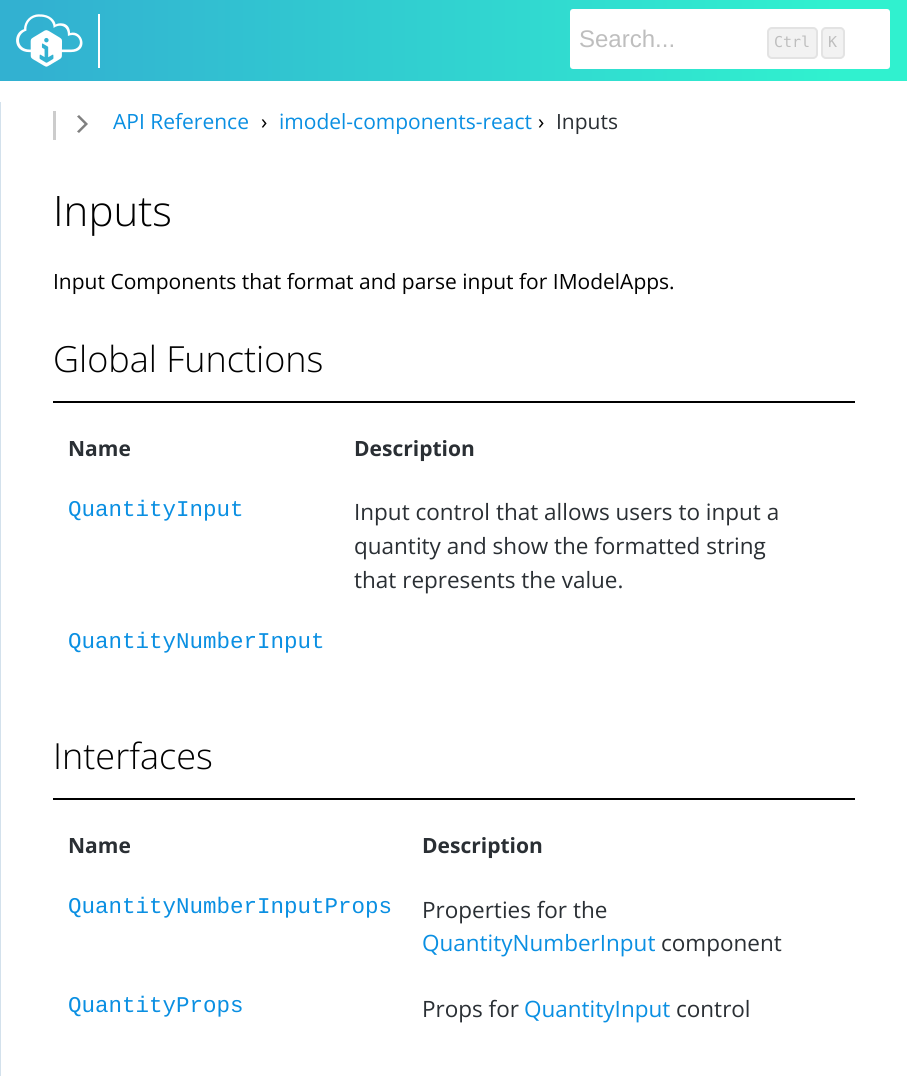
import math
import cairo

surface = cairo.ImageSurface(cairo.FORMAT_RGB24, 907, 1076)
c = cairo.Context(surface)
options = cairo.FontOptions()
options.set_hint_metrics(cairo.HINT_METRICS_OFF)
options.set_hint_style(cairo.HINT_STYLE_NONE)
c.set_font_options(options)
c.set_miter_limit(4)
def C(code):
 c.set_source_rgb(*(v / 255 for v in bytes.fromhex(code[-6:])))
def F(family, size, italic, bold):
 c.select_font_face(family, cairo.FONT_SLANT_ITALIC if italic else cairo.FONT_SLANT_NORMAL, cairo.FONT_WEIGHT_BOLD if bold else cairo.FONT_WEIGHT_NORMAL)
 c.set_font_size(size)
def T(x, y, s):
 c.move_to(x, y)
 c.show_text(s)
def R(x, y, w, h):
 c.rectangle(x, y, w, h)
 c.fill()
def Q(x, y, w, h, r):
 c.new_sub_path()
 for i, (u, v) in enumerate([(x + w - r, y + h - r), (x + r, y + h - r), (x + r, y + r), (x + w - r, y + r)]):
  c.arc(u, v, r, i * math.pi / 2, (i + 1) * math.pi / 2)
 c.close_path()
def I(path, x, y, w, h):
 c.save()
 c.set_source_surface(cairo.ImageSurface.create_from_png(path), x, y)
 c.rectangle(x, y, w, h)
 c.fill()
 c.restore()
C('ffffff')
c.paint()
gradient = cairo.LinearGradient(0,41,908,40)
gradient.add_color_stop_rgba(.04,0.196,0.694,0.82,1)
gradient.add_color_stop_rgba(.92,0.188,0.945,0.812,1)
c.set_source(gradient)
R(0,0,907,81)
I('1.png',16,14,67,53)
C('ffffff')
R(98,14,2,54)
Q(570,9,320,60,3)
c.fill()
F('Liberation Sans',24,0,0)
C('bebebe')
T(579,47,'Search...')
C('f2f2f2')
Q(767,27,51,32,5)
c.fill()
Q(768,28,49,30,4)
c.set_source_rgba(0.745,0.745,0.745,0.3)
c.stroke()
F('DejaVu Sans Mono',15,0,0)
C('bebebe')
T(774,47,'Ctrl')
C('f2f2f2')
Q(821,27,24,32,5)
c.fill()
Q(822,28,22,30,4)
c.set_source_rgba(0.745,0.745,0.745,0.3)
c.stroke()
C('bebebe')
T(828,47,'K')
C('d3e1ec')
R(0,102,1,974)
C('cccccc')
R(53,111,3,29)
C('808080')
c.new_path()
c.move_to(79,115)
c.line_to(77,116.5)
c.line_to(84.5,124)
c.line_to(77,131.5)
c.line_to(79,133)
c.line_to(88,124)
c.close_path()
c.fill()
F('Open Sans',21,0,0)
C('0a8fe2')
T(113,129,'API Reference')
C('000000')
T(261,129,'›')
C('0a8fe2')
T(279,129,'imodel-components-react')
C('000000')
T(538,129,'›')
C('2a2f34')
T(556,129,'Inputs')
F('Open Sans Light',42,0,0)
C('000000')
T(53,226,'Inputs')
F('Open Sans',21,0,0)
T(53,289,'Input Components that format and parse input for IModelApps.')
F('Open Sans Light',36,0,0)
T(53,372,'Global Functions')
R(53,401,802,2)
F('Open Sans',21,0,1)
C('2a2f34')
T(68,456,'Name')
T(354,456,'Description')
F('Liberation Mono',22.5,0,0)
C('0a8fe2')
T(68,516,'QuantityInput')
F('Open Sans',22.5,0,0)
C('2a2f34')
T(354,520,'Input control that allows users to input a')
T(354,554,'quantity and show the formatted string')
T(354,588,'that represents the value.')
F('Liberation Mono',22.5,0,0)
C('0a8fe2')
T(68,648,'QuantityNumberInput')
F('Open Sans Light',36,0,0)
C('000000')
T(53,769,'Interfaces')
R(53,798,802,2)
F('Open Sans',21,0,1)
C('2a2f34')
T(68,853,'Name')
T(422,853,'Description')
F('Liberation Mono',22.5,0,0)
C('0a8fe2')
T(68,913,'QuantityNumberInputProps')
F('Open Sans',22.5,0,0)
C('2a2f34')
T(422,918,'Properties for the')
C('0a8fe2')
T(422,951,'QuantityNumberInput')
C('2a2f34')
T(661,951,'component')
F('Liberation Mono',22.5,0,0)
C('0a8fe2')
T(68,1012,'QuantityProps')
F('Open Sans',22.5,0,0)
C('2a2f34')
T(422,1017,'Props for')
C('0a8fe2')
T(524,1017,'QuantityInput')
C('2a2f34')
T(676,1017,'control')
surface.write_to_png('o.png')
